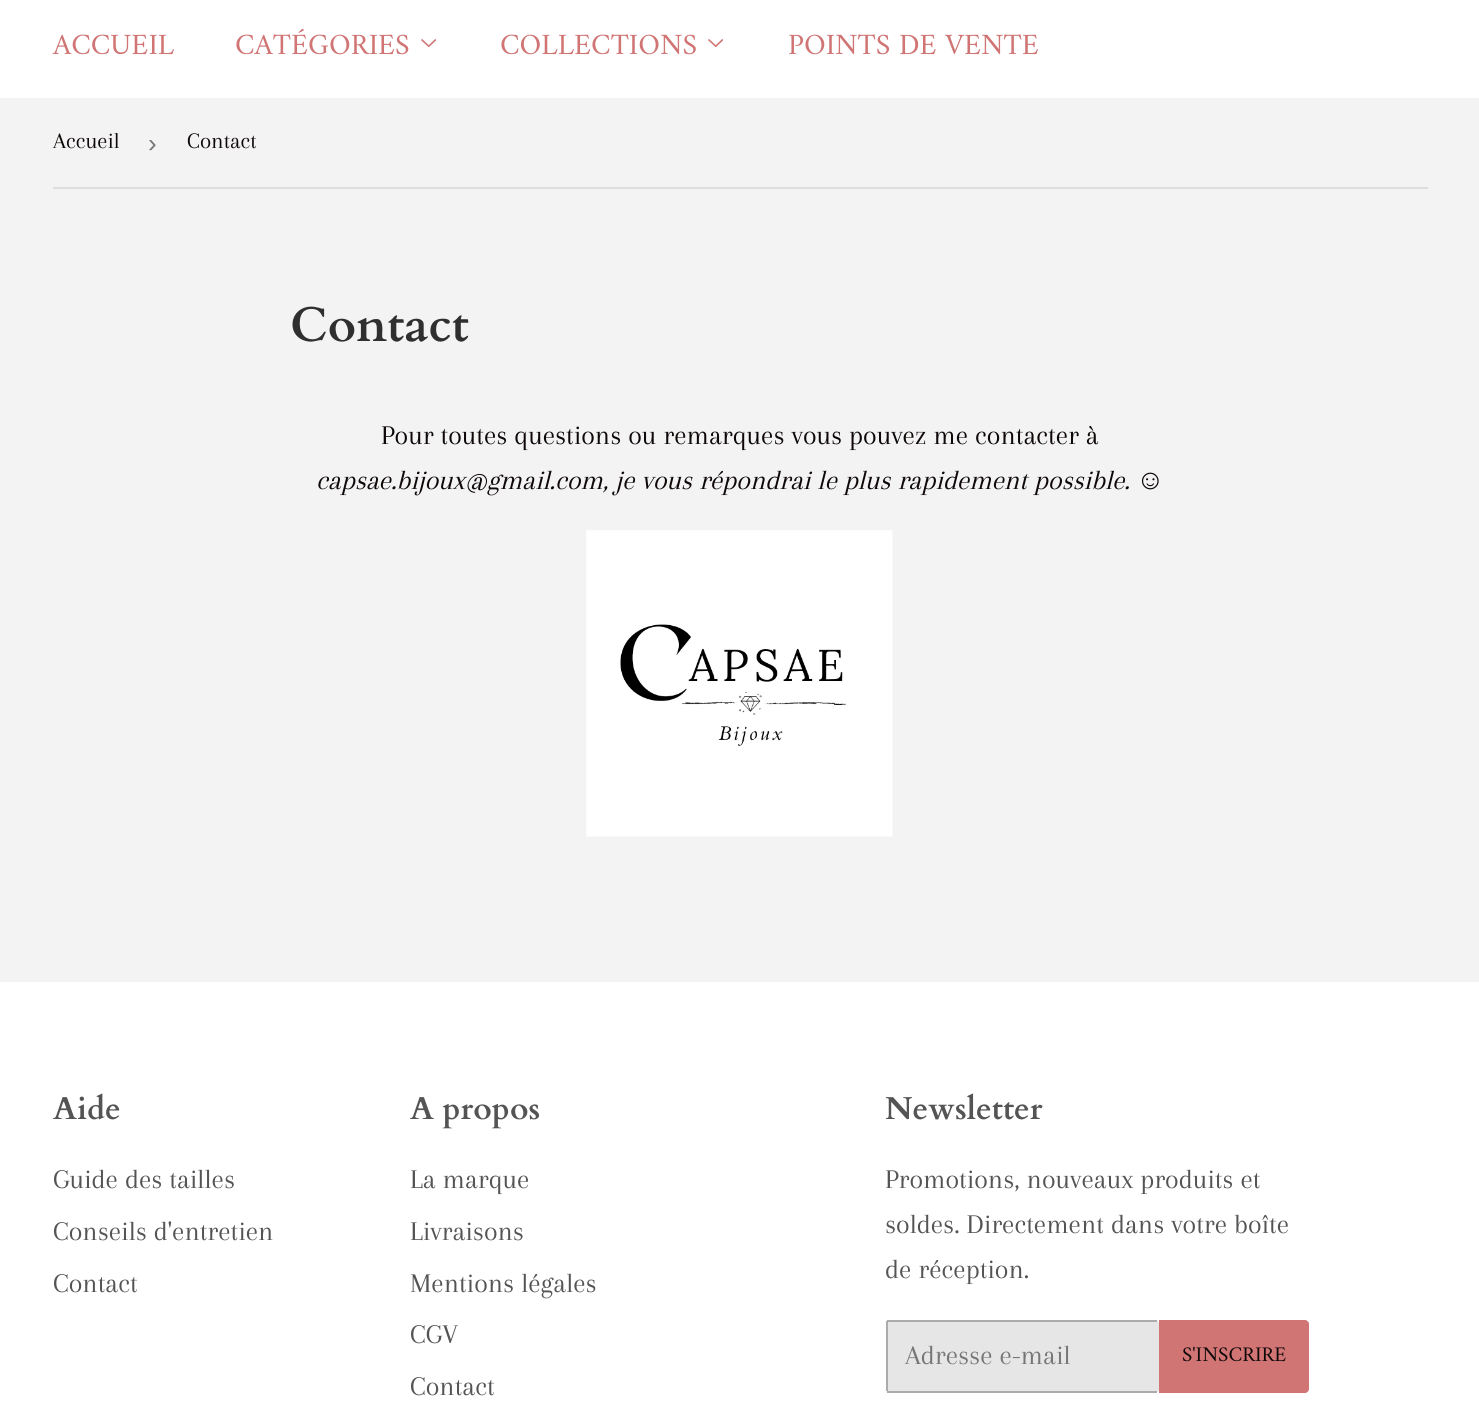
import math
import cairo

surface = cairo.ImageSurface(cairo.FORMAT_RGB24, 1479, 1424)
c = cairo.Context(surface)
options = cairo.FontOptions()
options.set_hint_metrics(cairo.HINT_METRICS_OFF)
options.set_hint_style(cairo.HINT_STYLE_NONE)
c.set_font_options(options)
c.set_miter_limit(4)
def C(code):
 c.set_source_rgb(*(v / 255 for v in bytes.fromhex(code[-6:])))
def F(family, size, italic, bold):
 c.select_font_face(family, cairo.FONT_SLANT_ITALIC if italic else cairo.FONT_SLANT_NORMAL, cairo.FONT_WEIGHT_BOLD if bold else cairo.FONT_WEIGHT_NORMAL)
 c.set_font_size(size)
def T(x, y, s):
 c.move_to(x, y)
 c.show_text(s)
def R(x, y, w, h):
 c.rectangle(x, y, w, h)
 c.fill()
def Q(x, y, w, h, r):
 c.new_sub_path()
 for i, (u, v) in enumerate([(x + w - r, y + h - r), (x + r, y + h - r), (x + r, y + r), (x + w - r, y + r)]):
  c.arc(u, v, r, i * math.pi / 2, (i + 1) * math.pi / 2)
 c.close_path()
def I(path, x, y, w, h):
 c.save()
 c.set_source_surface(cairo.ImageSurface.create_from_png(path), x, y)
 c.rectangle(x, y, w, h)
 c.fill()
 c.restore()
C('f3f3f3')
c.paint()
C('ffffff')
R(0,0,1479,98)
F('Amiri',29.75,0,0)
C('d07474')
T(53,54,'ACCUEIL')
T(235,54,'CATÉGORIES')
I('1.png',421,39,16,9)
T(500,54,'COLLECTIONS')
I('1.png',708,39,16,9)
T(788,54,'POINTS DE VENTE')
C('dedede')
R(53,187,1375,2)
F('Arapey',23,0,0)
C('0e0808')
T(53,148,'Accueil')
F('Liberation Sans',26,0,0)
C('767676')
T(148,152,'›')
F('Arapey',23,0,0)
C('0e0808')
T(187,148,'Contact')
F('Cardo',48.5,0,1)
C('2f2f2f')
T(290,341,'Contact')
F('Arapey',28,0,0)
C('0e0808')
T(381,444,'Pour toutes questions ou remarques vous pouvez me contacter à')
F('Arapey',28,1,0)
T(316,489,'capsae.bijoux@gmail.com, je vous répondrai le plus rapidement possible.')
F('Liberation Serif',28,1,0)
T(1136,489,'☺')
I('2.png',586,530,307,307)
C('ffffff')
R(0,982,1479,442)
F('Cardo',31.75,0,1)
C('545454')
T(53,1119,'Aide')
F('Arapey',28,0,0)
T(53,1188,'Guide des tailles')
T(53,1240,'Conseils d\'entretien')
T(53,1292,'Contact')
F('Cardo',31.75,0,1)
T(410,1119,'A propos')
F('Arapey',28,0,0)
T(410,1188,'La marque')
T(410,1240,'Livraisons')
T(410,1292,'Mentions légales')
T(410,1343,'CGV')
T(410,1395,'Contact')
F('Cardo',31.75,0,1)
T(885,1119,'Newsletter')
F('Arapey',28,0,0)
T(885,1188,'Promotions, nouveaux produits et')
T(885,1233,'soldes. Directement dans votre boîte')
T(885,1278,'de réception.')
C('e7e6e6')
Q(886,1320,273,73,4)
c.fill()
C('ababab')
R(887,1320,270,2)
R(887,1391,270,2)
R(886,1321,2,70)
C('767676')
T(905,1364,'Adresse e-mail')
C('d07474')
c.new_path()
c.move_to(1159,1320)
c.line_to(1305,1320)
c.curve_to(1307,1320,1309,1322,1309,1324)
c.line_to(1309,1389)
c.curve_to(1309,1391,1307,1393,1305,1393)
c.line_to(1159,1393)
c.close_path()
c.fill()
F('Amiri',21,0,0)
C('0e0808')
T(1182,1361,'S\'INSCRIRE')
surface.write_to_png('o.png')
